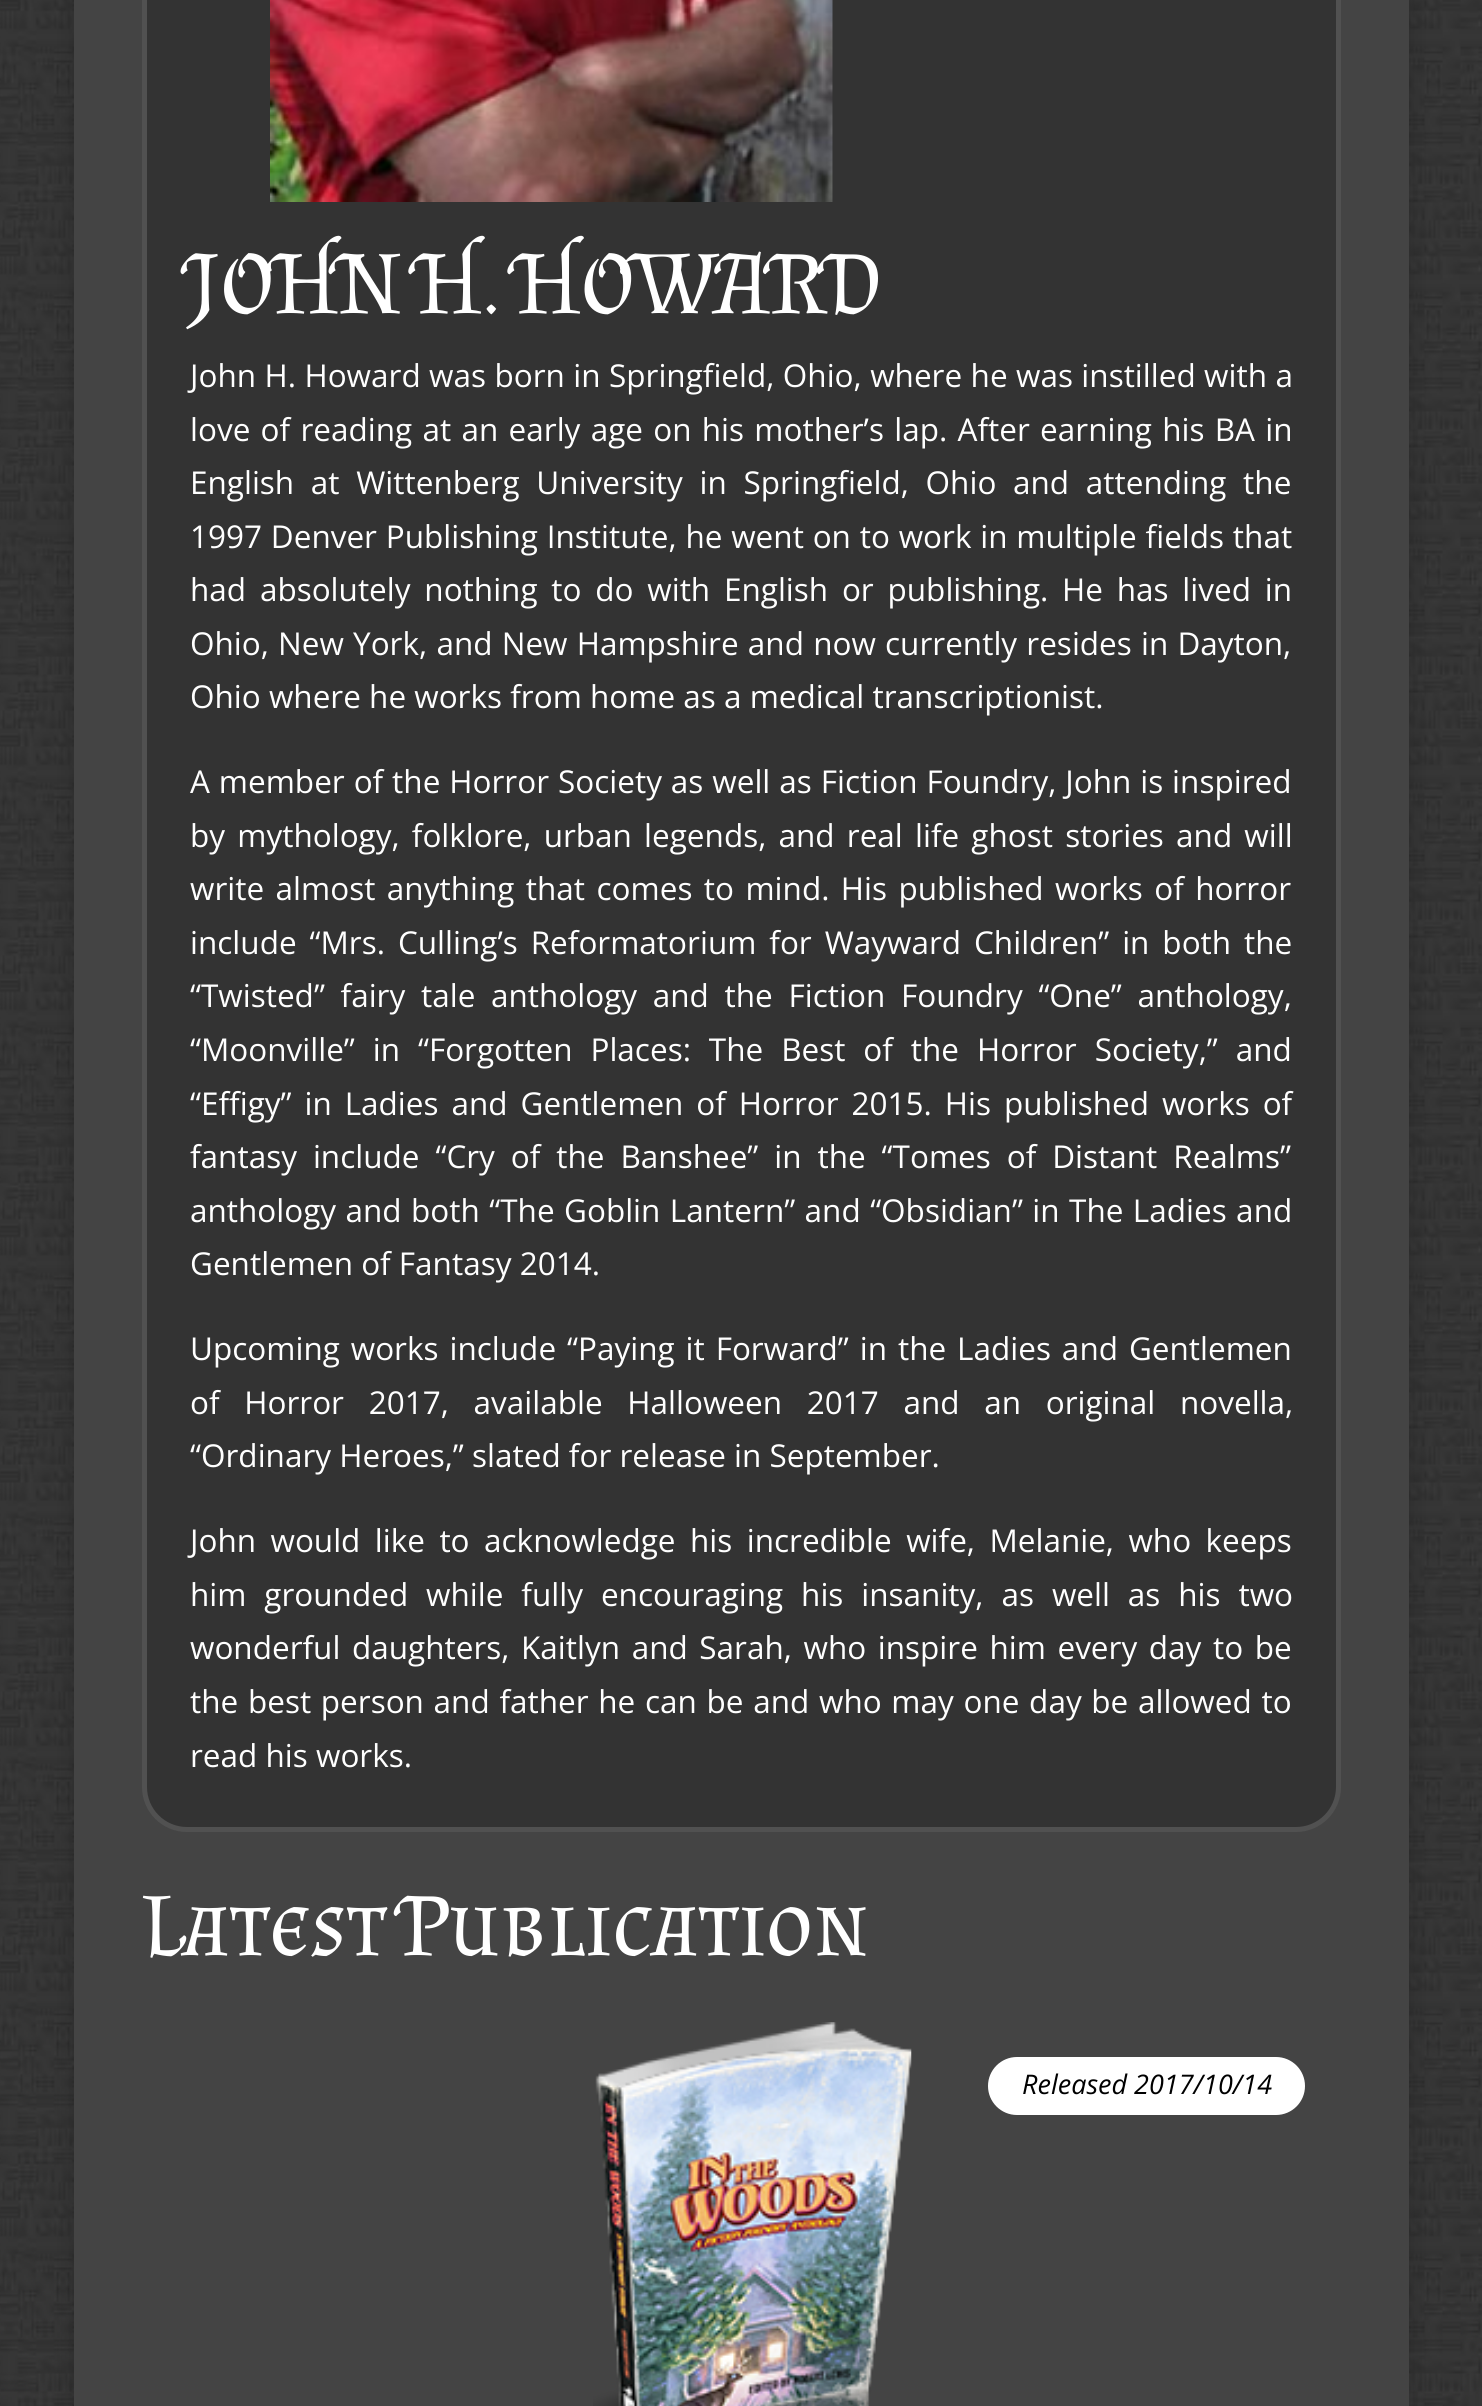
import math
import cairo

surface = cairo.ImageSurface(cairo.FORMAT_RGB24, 1482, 2406)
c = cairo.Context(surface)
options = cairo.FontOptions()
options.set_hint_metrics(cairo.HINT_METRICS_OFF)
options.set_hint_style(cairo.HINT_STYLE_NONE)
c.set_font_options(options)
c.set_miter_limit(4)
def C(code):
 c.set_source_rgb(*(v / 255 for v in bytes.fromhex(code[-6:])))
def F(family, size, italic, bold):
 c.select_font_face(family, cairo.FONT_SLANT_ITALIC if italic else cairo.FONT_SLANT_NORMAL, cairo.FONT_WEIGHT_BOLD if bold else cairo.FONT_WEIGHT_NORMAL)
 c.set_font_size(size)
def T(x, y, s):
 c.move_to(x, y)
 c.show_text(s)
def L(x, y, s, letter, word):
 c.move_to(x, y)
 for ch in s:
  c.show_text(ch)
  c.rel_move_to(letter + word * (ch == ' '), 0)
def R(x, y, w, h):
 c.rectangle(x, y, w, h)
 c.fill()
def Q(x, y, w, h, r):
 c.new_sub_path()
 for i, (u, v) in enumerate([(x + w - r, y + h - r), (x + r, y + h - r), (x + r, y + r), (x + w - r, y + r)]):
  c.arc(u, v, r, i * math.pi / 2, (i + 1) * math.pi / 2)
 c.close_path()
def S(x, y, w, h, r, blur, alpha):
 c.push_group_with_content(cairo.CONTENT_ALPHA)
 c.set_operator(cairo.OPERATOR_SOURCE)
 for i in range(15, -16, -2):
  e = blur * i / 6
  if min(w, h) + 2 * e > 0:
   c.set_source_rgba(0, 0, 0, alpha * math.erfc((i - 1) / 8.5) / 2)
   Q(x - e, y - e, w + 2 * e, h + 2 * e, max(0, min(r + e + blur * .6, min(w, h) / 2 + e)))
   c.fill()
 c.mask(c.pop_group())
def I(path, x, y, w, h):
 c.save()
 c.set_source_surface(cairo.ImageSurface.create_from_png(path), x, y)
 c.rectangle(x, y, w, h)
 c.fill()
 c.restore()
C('ffffff')
c.paint()
I('1.png',0,0,1482,2406)
C('000000')
S(74,-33,1335,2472,0,11,.2)
C('444444')
R(74,0,1335,2406)
C('333333')
Q(144.5,-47.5,1194,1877,42.5)
c.fill_preserve()
C('515151')
c.set_line_width(5)
c.stroke()
I('2.png',270,0,563,202)
F('Almendra SC',90,0,0)
C('ffffff')
T(190,313,'JOHN H. HOWARD')
F('Open Sans',31.5,0,0)
L(190,387,'John H. Howard was born in Springfield, Ohio, where he was instilled with a',0,.25)
L(190,441,'love of reading at an early age on his mother’s lap. After earning his BA in',0,2.1)
L(190,494,'English at Wittenberg University in Springfield, Ohio and attending the',0,8.5)
L(190,548,'1997 Denver Publishing Institute, he went on to work in multiple fields that',0,.6)
L(190,601,'had absolutely nothing to do with English or publishing. He has lived in',0,5.6)
L(190,655,'Ohio, New York, and New Hampshire and now currently resides in Dayton,',0,1)
T(190,708,'Ohio where he works from home as a medical transcriptionist.')
L(190,793,'A member of the Horror Society as well as Fiction Foundry, John is inspired',0,.75)
L(190,847,'by mythology, folklore, urban legends, and real life ghost stories and will',0,4)
L(190,900,'write almost anything that comes to mind. His published works of horror',0,3.25)
L(190,954,'include “Mrs. Culling’s Reformatorium for Wayward Children” in both the',0,4.75)
L(190,1007,'“Twisted” fairy tale anthology and the Fiction Foundry “One” anthology,',0,7.5)
L(190,1061,'“Moonville” in “Forgotten Places: The Best of the Horror Society,” and',0,9.75)
L(190,1115,'“Effigy” in Ladies and Gentlemen of Horror 2015. His published works of',0,4.75)
L(190,1168,'fantasy include “Cry of the Banshee” in the “Tomes of Distant Realms”',0,7.75)
L(190,1222,'anthology and both “The Goblin Lantern” and “Obsidian” in The Ladies and',0,1.25)
T(190,1275,'Gentlemen of Fantasy 2014.')
L(190,1360,'Upcoming works include “Paying it Forward” in the Ladies and Gentlemen',0,2.75)
L(190,1414,'of Horror 2017, available Halloween 2017 and an original novella,',0,16.5)
T(190,1467,'“Ordinary Heroes,” slated for release in September.')
L(190,1552,'John would like to acknowledge his incredible wife, Melanie, who keeps',0,6.25)
L(190,1606,'him grounded while fully encouraging his insanity, as well as his two',0,9.75)
L(190,1659,'wonderful daughters, Kaitlyn and Sarah, who inspire him every day to be',0,3.4)
L(190,1713,'the best person and father he can be and who may one day be allowed to',0,1.5)
T(190,1767,'read his works.')
F('Almendra SC',90,0,0)
T(141,1955,'Latest Publication')
I('3.png',593,2022,319,384)
Q(988,2057,317,58,29)
c.fill()
F('Open Sans',27,1,0)
C('000000')
T(1022,2094,'Released 2017/10/14')
surface.write_to_png('o.png')
